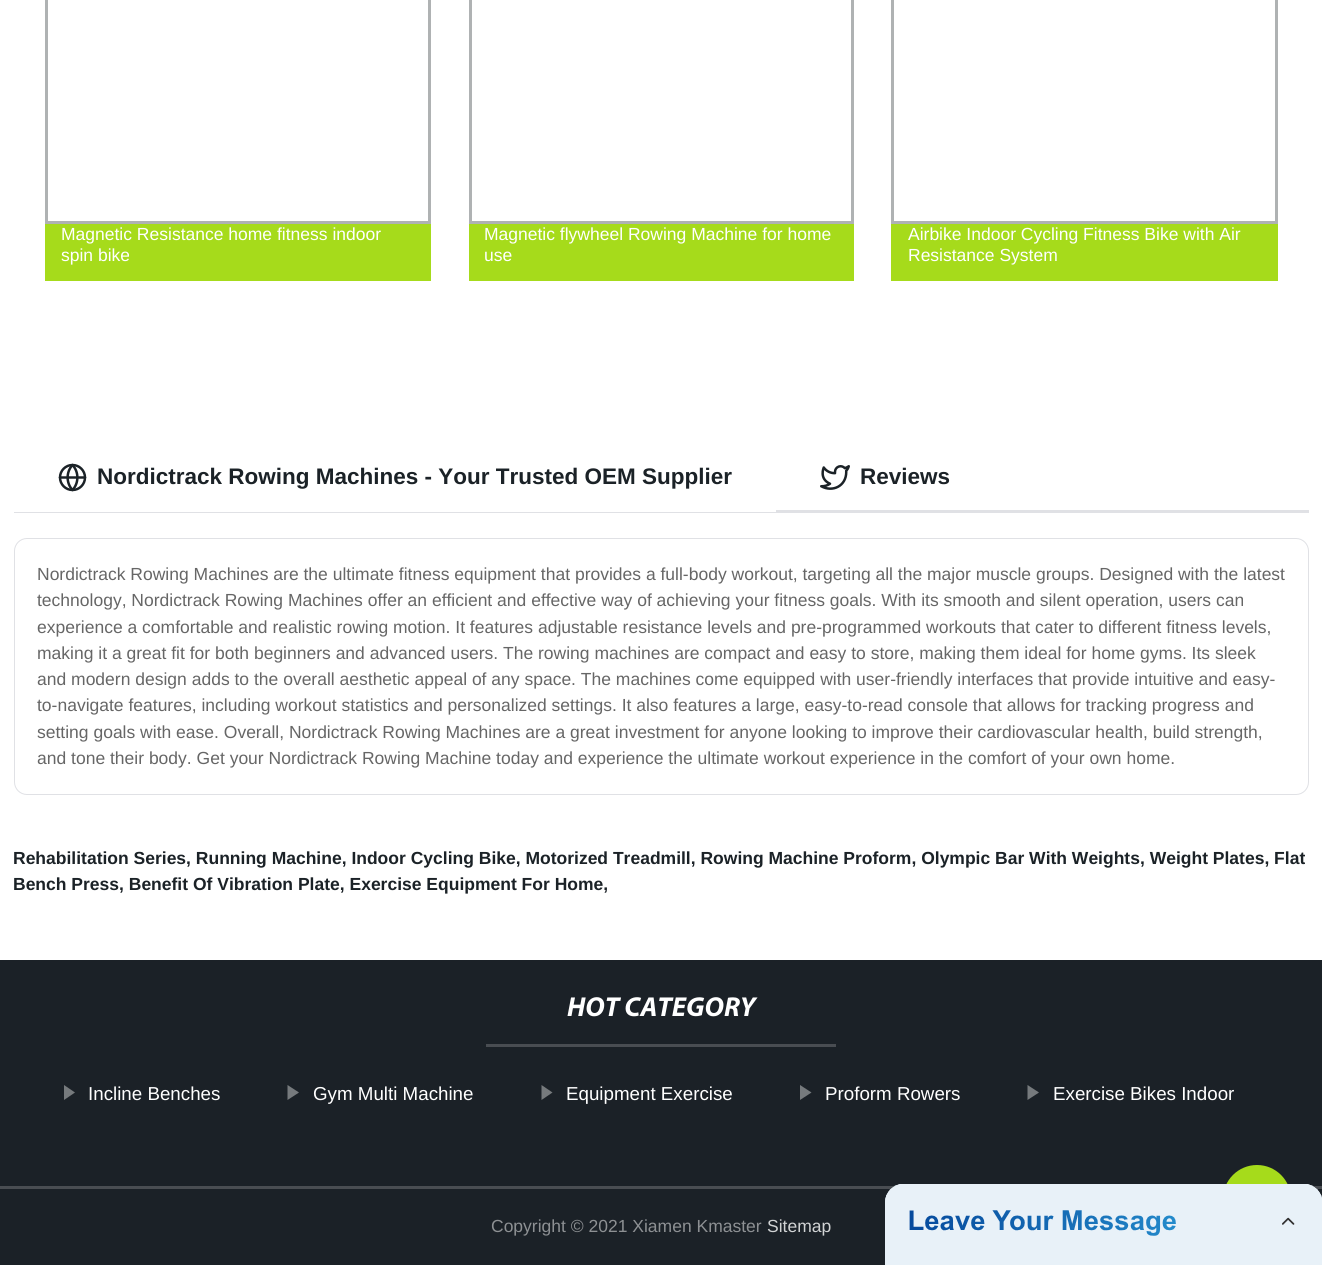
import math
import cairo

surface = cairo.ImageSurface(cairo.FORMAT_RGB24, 1322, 1265)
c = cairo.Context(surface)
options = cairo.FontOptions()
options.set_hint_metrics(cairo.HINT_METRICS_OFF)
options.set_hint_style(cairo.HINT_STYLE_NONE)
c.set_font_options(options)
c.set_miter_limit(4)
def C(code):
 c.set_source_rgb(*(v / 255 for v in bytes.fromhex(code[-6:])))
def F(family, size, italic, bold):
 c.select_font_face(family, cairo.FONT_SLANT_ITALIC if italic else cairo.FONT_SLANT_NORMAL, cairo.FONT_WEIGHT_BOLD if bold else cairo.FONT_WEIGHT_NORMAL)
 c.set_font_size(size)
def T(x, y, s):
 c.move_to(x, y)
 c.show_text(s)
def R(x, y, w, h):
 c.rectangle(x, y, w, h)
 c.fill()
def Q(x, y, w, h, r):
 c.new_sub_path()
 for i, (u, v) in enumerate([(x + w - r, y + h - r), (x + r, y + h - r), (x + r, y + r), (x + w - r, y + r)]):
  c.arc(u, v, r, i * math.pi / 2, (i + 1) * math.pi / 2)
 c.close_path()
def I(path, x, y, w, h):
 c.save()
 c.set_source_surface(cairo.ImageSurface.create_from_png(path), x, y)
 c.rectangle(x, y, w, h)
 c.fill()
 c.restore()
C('ffffff')
c.paint()
c.rectangle(46.5,-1.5,383,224)
C('afb2b3')
c.set_line_width(3)
c.stroke()
C('a6db1b')
R(45,224,386,57)
F('Liberation Sans',17.5,0,0)
C('ffffff')
T(61,240,'Magnetic Resistance home fitness indoor')
T(61,261,'spin bike')
c.rectangle(470.5,-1.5,382,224)
C('afb2b3')
c.stroke()
C('a6db1b')
R(469,224,385,57)
C('ffffff')
T(484,240,'Magnetic flywheel Rowing Machine for home')
T(484,261,'use')
c.rectangle(892.5,-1.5,384,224)
C('afb2b3')
c.stroke()
C('a6db1b')
R(891,224,387,57)
C('ffffff')
T(908,240,'Airbike Indoor Cycling Fitness Bike with Air')
T(908,261,'Resistance System')
c.new_path()
c.arc(72.5,477.5,12.5,0,2 * math.pi)
C('1b2227')
c.set_line_width(2.5)
c.stroke()
c.new_path()
c.move_to(60,477.5)
c.line_to(85,477.5)
c.move_to(72.5,465)
c.curve_to(79,472,79,483,72.5,490)
c.curve_to(66,483,66,472,72.5,465)
c.close_path()
c.set_line_cap(cairo.LINE_CAP_ROUND)
c.set_line_join(cairo.LINE_JOIN_ROUND)
c.stroke()
F('Liberation Sans',22.5,0,1)
T(97,484,'Nordictrack Rowing Machines - Your Trusted OEM Supplier')
C('e0e1e5')
R(14,510,1295,3)
C('ffffff')
R(14,510,762,2)
I('1.png',820,465,30,25)
C('1b2227')
T(860,484,'Reviews')
Q(14.5,538.5,1294,256,12.5)
C('e0e1e5')
c.set_line_width(1)
c.set_line_cap(cairo.LINE_CAP_BUTT)
c.set_line_join(cairo.LINE_JOIN_MITER)
c.stroke()
F('Liberation Sans',17.5,0,0)
C('666666')
T(37,580,'Nordictrack Rowing Machines are the ultimate fitness equipment that provides a full-body workout, targeting all the major muscle groups. Designed with the latest')
T(37,606,'technology, Nordictrack Rowing Machines offer an efficient and effective way of achieving your fitness goals. With its smooth and silent operation, users can')
T(37,633,'experience a comfortable and realistic rowing motion. It features adjustable resistance levels and pre-programmed workouts that cater to different fitness levels,')
T(37,659,'making it a great fit for both beginners and advanced users. The rowing machines are compact and easy to store, making them ideal for home gyms. Its sleek')
T(37,685,'and modern design adds to the overall aesthetic appeal of any space. The machines come equipped with user-friendly interfaces that provide intuitive and easy-')
T(37,711,'to-navigate features, including workout statistics and personalized settings. It also features a large, easy-to-read console that allows for tracking progress and')
T(37,738,'setting goals with ease. Overall, Nordictrack Rowing Machines are a great investment for anyone looking to improve their cardiovascular health, build strength,')
T(37,764,'and tone their body. Get your Nordictrack Rowing Machine today and experience the ultimate workout experience in the comfort of your own home.')
F('Liberation Sans',17.5,0,1)
C('1b2227')
T(13,864,'Rehabilitation Series, Running Machine, Indoor Cycling Bike, Motorized Treadmill, Rowing Machine Proform, Olympic Bar With Weights, Weight Plates, Flat')
T(13,890,'Bench Press, Benefit Of Vibration Plate, Exercise Equipment For Home,')
C('1b2127')
R(0,960,1322,305)
F('Myriad',27.5,1,1)
C('ffffff')
T(567,1016,'HOT CATEGORY')
C('494d52')
R(486,1044,350,3)
C('767a7d')
c.new_path()
c.move_to(64,1100)
c.line_to(64,1085)
c.line_to(75,1092.5)
c.close_path()
c.fill()
F('Liberation Sans',18.75,0,0)
C('ffffff')
T(88,1100,'Incline Benches')
C('767a7d')
c.new_path()
c.move_to(287.5,1100)
c.line_to(287.5,1085)
c.line_to(299,1092.5)
c.close_path()
c.fill()
C('ffffff')
T(313,1100,'Gym Multi Machine')
C('767a7d')
c.new_path()
c.move_to(541.5,1100)
c.line_to(541.5,1085)
c.line_to(552.5,1092.5)
c.close_path()
c.fill()
C('ffffff')
T(566,1100,'Equipment Exercise')
C('767a7d')
c.new_path()
c.move_to(800,1100)
c.line_to(800,1085)
c.line_to(811.5,1092.5)
c.close_path()
c.fill()
C('ffffff')
T(825,1100,'Proform Rowers')
C('767a7d')
c.new_path()
c.move_to(1027.5,1100)
c.line_to(1027.5,1085)
c.line_to(1039,1092.5)
c.close_path()
c.fill()
C('ffffff')
T(1053,1100,'Exercise Bikes Indoor')
C('494d52')
R(0,1186,1322,3)
F('Liberation Sans',17.5,0,0)
C('8d9093')
T(491,1232,'Copyright © 2021 Xiamen Kmaster')
C('d1d3d4')
T(767,1232,'Sitemap')
C('a6db1b')
Q(1223,1165,68,69,34)
c.fill()
I('2.png',885,1184,437,81)
surface.write_to_png('o.png')
